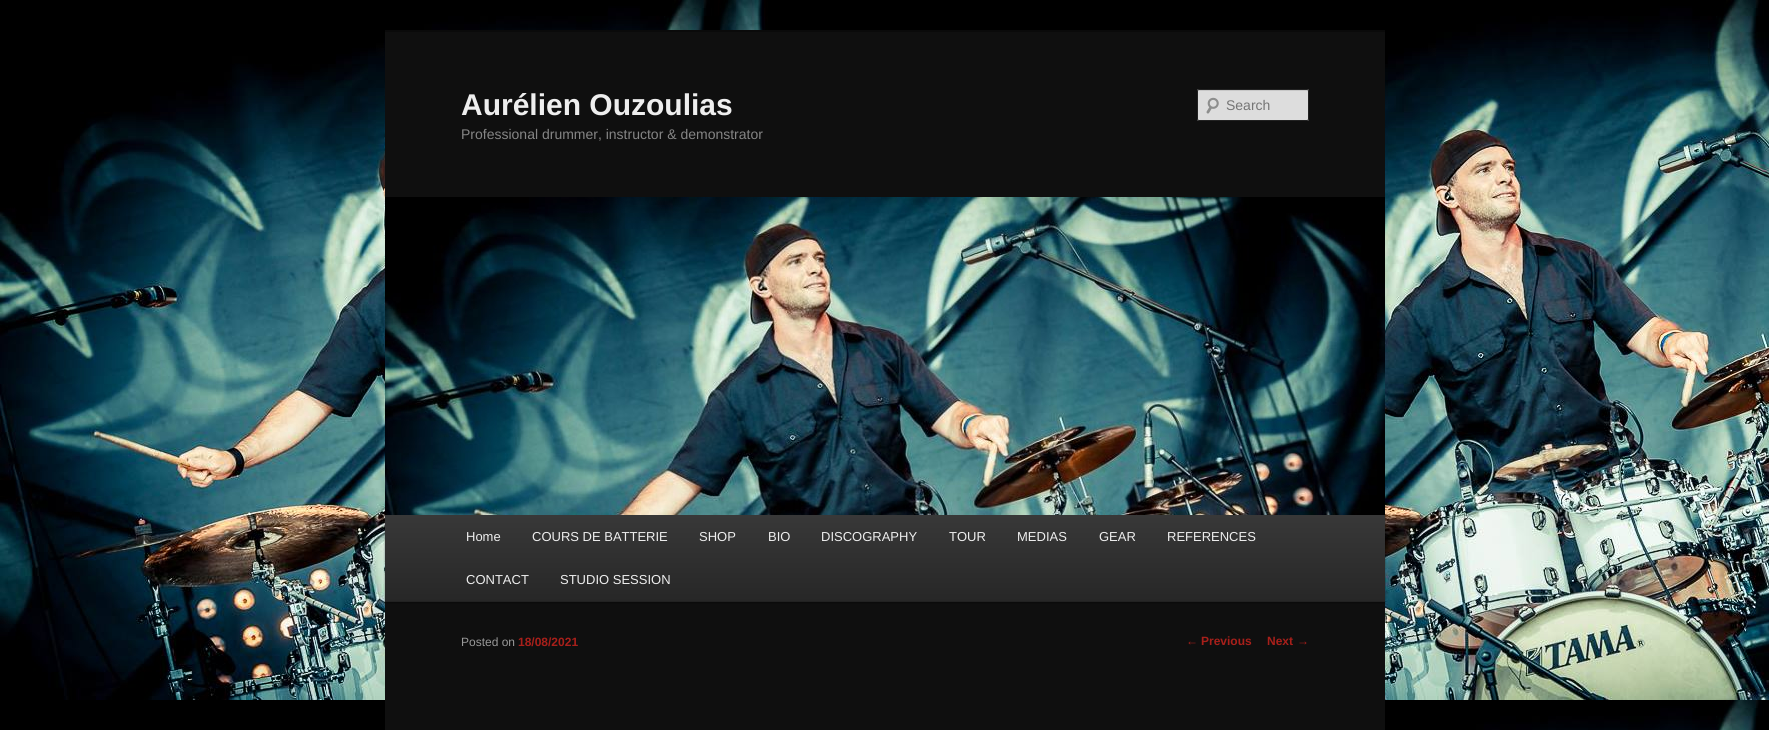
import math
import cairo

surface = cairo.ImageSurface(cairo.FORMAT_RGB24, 1769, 730)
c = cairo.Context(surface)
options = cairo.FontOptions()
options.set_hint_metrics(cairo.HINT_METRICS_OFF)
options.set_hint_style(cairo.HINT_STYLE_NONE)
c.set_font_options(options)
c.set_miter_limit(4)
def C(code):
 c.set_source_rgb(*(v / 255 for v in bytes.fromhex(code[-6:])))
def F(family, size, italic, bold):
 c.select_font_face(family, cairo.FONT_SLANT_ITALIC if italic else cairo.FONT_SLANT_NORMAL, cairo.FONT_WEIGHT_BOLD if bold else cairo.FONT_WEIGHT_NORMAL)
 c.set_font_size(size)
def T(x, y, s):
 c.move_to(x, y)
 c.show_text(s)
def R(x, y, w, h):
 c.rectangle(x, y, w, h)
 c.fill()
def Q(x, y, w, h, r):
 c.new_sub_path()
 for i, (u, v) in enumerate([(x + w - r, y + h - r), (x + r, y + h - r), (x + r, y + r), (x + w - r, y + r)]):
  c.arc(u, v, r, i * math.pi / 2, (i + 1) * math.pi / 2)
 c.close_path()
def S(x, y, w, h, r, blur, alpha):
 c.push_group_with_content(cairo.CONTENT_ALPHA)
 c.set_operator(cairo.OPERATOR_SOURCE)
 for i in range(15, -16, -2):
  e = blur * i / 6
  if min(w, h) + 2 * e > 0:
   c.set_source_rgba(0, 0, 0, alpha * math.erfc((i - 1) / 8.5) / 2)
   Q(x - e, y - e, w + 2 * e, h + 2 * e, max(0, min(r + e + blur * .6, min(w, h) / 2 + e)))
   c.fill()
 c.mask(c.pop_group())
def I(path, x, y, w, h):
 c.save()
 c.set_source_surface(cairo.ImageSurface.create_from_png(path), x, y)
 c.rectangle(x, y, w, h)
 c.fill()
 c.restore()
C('ffffff')
c.paint()
I('1.png',0,0,1769,730)
C('0f0f0f')
R(385,32,1000,698)
C('0a0a0a')
R(385,30,1000,2)
F('Liberation Sans',30,0,1)
C('eeeeee')
T(461,115,'Aurélien Ouzoulias')
F('Liberation Sans',14,0,0)
C('858585')
T(461,139,'Professional drummer, instructor & demonstrator')
C('dddddd')
Q(1197,89,112,32,2)
c.fill()
I('2.png',1206,97,13,17)
c.set_source_rgba(0,0,0,0.1)
c.new_path()
c.move_to(1199,91)
c.line_to(1308,91)
c.line_to(1308,92)
c.line_to(1307,90)
c.line_to(1217,90)
c.curve_to(1213,90,1198,85,1198,92)
c.curve_to(1198,91,1198,91,1199,91)
c.close_path()
c.fill()
Q(1197.5,89.5,111,31,1.5)
C('222222')
c.set_line_width(1)
c.stroke()
C('757575')
T(1226,110,'Search')
C('000000')
S(385,516,1000,87,0,1,.4)
I('3.png',385,197,1000,318)
gradient = cairo.LinearGradient(885,515,885,601)
gradient.add_color_stop_rgba(0,0.22,0.22,0.22,1)
gradient.add_color_stop_rgba(1,0.153,0.153,0.153,1)
c.set_source(gradient)
R(385,515,1000,86)
C('222222')
R(385,601,1000,1)
F('Liberation Sans',13,0,0)
C('eeeeee')
T(466,541,'Home')
T(532,541,'COURS DE BATTERIE')
T(699,541,'SHOP')
T(768,541,'BIO')
T(821,541,'DISCOGRAPHY')
T(949,541,'TOUR')
T(1017,541,'MEDIAS')
T(1099,541,'GEAR')
T(1167,541,'REFERENCES')
T(466,584,'CONTACT')
T(560,584,'STUDIO SESSION')
F('Liberation Sans',12,0,0)
C('999999')
T(461,646,'Posted on')
F('Liberation Sans',12,0,1)
C('a81f1a')
T(518,646,'18/08/2021')
F('Liberation Sans',12,0,0)
T(1186,645,'←')
F('Liberation Sans',12,0,1)
T(1201,645,'Previous')
T(1267,645,'Next')
F('Liberation Sans',12,0,0)
T(1297,645,'→')
surface.write_to_png('o.png')
